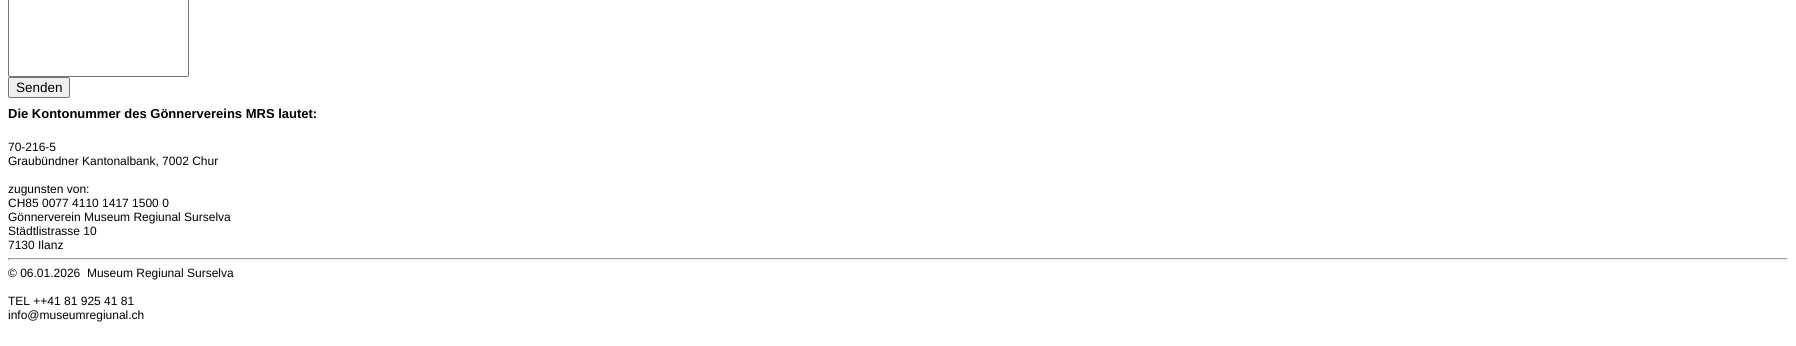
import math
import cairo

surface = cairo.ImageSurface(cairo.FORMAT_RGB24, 1796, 346)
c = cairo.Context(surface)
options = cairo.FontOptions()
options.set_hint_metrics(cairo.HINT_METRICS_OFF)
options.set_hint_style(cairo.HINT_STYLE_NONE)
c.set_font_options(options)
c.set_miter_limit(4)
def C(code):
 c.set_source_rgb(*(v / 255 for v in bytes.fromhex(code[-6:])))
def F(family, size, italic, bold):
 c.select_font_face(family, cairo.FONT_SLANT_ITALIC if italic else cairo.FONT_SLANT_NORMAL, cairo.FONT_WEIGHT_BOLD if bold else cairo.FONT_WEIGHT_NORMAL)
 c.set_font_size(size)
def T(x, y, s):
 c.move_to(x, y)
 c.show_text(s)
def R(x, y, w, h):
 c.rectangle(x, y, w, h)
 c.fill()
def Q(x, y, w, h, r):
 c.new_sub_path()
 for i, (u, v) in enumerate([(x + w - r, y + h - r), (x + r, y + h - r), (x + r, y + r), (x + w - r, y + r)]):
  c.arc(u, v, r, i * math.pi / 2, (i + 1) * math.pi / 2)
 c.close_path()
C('ffffff')
c.paint()
Q(8.5,-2.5,180,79,1.5)
C('767676')
c.set_line_width(1)
c.stroke()
C('efefef')
Q(8.5,77.5,61,20,1.5)
c.fill_preserve()
C('767676')
c.stroke()
F('Liberation Sans',13.5,0,0)
C('000000')
T(16,92,'Senden')
F('Liberation Sans',13,0,1)
T(8,118,'Die Kontonummer des Gönnervereins MRS lautet:')
F('Liberation Sans',12,0,0)
T(8,151,'70-216-5')
T(8,165,'Graubündner Kantonalbank, 7002 Chur')
T(8,193,'zugunsten von:')
T(8,207,'CH85 0077 4110 1417 1500 0')
T(8,221,'Gönnerverein Museum Regiunal Surselva')
T(8,235,'Städtlistrasse 10')
T(8,249,'7130 Ilanz')
C('9f9f9f')
R(8,258,1780,1)
C('eeeeee')
R(1787,258,1,2)
R(8,259,1780,1)
C('9f9f9f')
R(8,258,1,2)
C('000000')
T(8,277,'© 06.01.2026  Museum Regiunal Surselva')
T(8,305,'TEL ++41 81 925 41 81')
T(8,319,'info@museumregiunal.ch')
surface.write_to_png('o.png')
